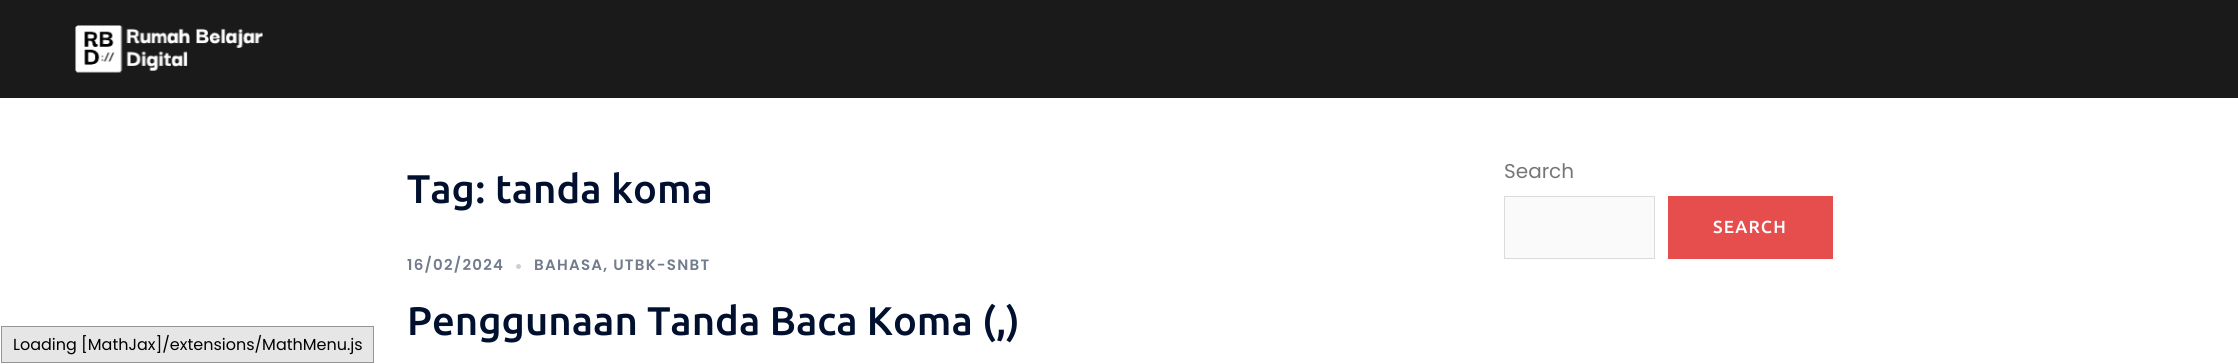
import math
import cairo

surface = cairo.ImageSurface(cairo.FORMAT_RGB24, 2238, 364)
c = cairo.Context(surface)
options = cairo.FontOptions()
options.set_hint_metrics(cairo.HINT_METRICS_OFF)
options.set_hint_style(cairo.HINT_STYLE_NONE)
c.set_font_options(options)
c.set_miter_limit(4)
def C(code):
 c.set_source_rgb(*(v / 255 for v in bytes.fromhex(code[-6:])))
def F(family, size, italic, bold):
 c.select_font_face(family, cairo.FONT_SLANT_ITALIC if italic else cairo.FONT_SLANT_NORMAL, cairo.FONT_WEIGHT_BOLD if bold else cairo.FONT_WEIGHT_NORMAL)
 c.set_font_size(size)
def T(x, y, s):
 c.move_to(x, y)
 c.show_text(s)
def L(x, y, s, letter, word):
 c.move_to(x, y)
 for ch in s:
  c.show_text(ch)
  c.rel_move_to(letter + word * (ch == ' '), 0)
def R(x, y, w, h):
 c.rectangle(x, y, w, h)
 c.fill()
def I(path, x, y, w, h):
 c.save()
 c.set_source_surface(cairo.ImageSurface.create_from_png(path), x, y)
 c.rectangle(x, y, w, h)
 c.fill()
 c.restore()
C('ffffff')
c.paint()
C('e6e6e6')
c.rectangle(1.5,326.5,372,36)
c.fill_preserve()
C('959595')
c.set_line_width(1)
c.stroke()
F('Poppins',16,0,0)
C('000000')
T(13,350,'Loading [MathJax]/extensions/MathMenu.js')
C('1a1a1a')
R(0,0,2238,98)
I('1.png',75,25,188,48)
F('Ubuntu Medium',40,0,0)
C('00102e')
T(407,203,'Tag: tanda koma')
F('Poppins SemiBold',15,0,0)
C('737c8c')
L(407,270,'16/02/2024',1.25,0)
C('cccfd5')
c.new_path()
c.arc(518.5,266.5,2.5,0,2 * math.pi)
c.fill()
C('737c8c')
L(534,270,'BAHASA, UTBK-SNBT',1.25,0)
F('Ubuntu Medium',40,0,0)
C('00102e')
T(407,335,'Penggunaan Tanda Baca Koma (,)')
F('Poppins',20,0,0)
C('767676')
T(1504,178,'Search')
C('fafafa')
c.rectangle(1504.5,196.5,150,62)
c.fill_preserve()
C('dbdbdb')
c.stroke()
C('e64e4e')
R(1668,196,165,63)
F('Ubuntu Medium',17.5,0,0)
C('ffffff')
L(1713,233,'SEARCH',1.25,0)
surface.write_to_png('o.png')
